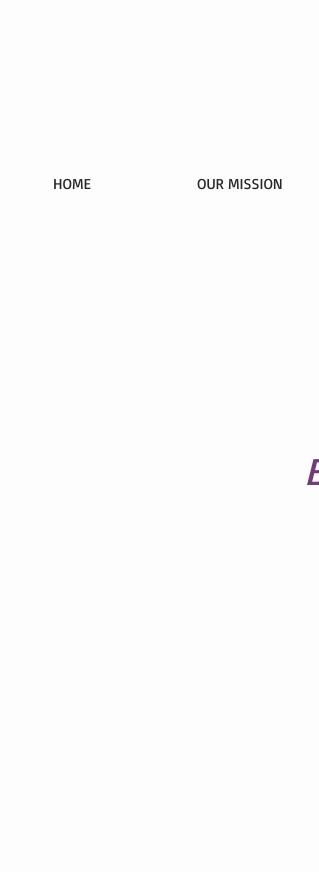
import math
import cairo

surface = cairo.ImageSurface(cairo.FORMAT_RGB24, 319, 872)
c = cairo.Context(surface)
options = cairo.FontOptions()
options.set_hint_metrics(cairo.HINT_METRICS_OFF)
options.set_hint_style(cairo.HINT_STYLE_NONE)
c.set_font_options(options)
c.set_miter_limit(4)
def C(code):
 c.set_source_rgb(*(v / 255 for v in bytes.fromhex(code[-6:])))
def F(family, size, italic, bold):
 c.select_font_face(family, cairo.FONT_SLANT_ITALIC if italic else cairo.FONT_SLANT_NORMAL, cairo.FONT_WEIGHT_BOLD if bold else cairo.FONT_WEIGHT_NORMAL)
 c.set_font_size(size)
def T(x, y, s):
 c.move_to(x, y)
 c.show_text(s)
C('fefdfd')
c.paint()
F('Basic',15,0,0)
C('262626')
T(53,189,'HOME')
T(197,189,'OUR MISSION')
F('Basic',39,1,0)
C('733b7a')
T(304,485,'E')
surface.write_to_png('o.png')
